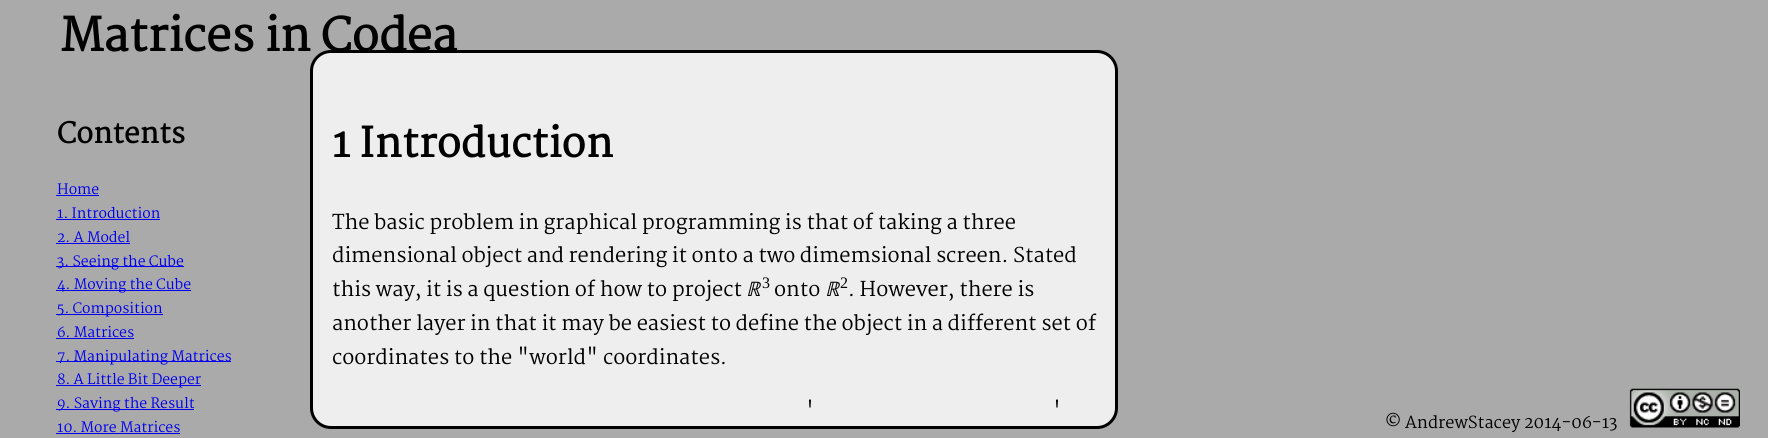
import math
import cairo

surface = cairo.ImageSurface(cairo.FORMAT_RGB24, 1768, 438)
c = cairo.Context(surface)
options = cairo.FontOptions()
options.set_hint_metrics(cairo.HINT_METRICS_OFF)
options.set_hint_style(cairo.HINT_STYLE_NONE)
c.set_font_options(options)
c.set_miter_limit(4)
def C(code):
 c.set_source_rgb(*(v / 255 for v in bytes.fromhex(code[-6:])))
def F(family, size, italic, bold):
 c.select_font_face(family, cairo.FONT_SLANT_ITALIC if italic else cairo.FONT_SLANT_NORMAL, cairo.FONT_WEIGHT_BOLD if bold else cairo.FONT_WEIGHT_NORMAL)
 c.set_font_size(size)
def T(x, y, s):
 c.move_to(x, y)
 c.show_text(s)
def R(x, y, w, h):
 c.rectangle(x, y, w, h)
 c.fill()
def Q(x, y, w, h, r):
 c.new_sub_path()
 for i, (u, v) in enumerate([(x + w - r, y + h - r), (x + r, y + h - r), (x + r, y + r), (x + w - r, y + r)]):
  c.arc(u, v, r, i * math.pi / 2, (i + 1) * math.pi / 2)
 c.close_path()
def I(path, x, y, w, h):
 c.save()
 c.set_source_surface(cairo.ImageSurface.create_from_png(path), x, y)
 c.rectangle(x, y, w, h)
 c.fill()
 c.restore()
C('aaaaaa')
c.paint()
C('eeeeee')
Q(311.5,51.5,805,376,19.5)
c.fill_preserve()
C('000000')
c.set_line_width(3)
c.stroke()
F('Martel',45,0,1)
T(60,51,'Matrices in Codea')
F('Martel',16.25,0,0)
T(1385,428,'© AndrewStacey 2014-06-13')
I('1.png',1629,388,111,40)
F('Martel',28,0,1)
T(57,143,'Contents')
F('Martel',14,0,0)
C('0000ee')
T(57,194,'Home')
R(56,195,43,1)
T(57,218,'1. Introduction')
R(56,219,104,1)
T(57,242,'2. A Model')
R(56,243,74,1)
R(56,266,128,1)
T(57,266,'3. Seeing the Cube')
R(56,290,135,1)
T(57,289,'4. Moving the Cube')
R(56,314,107,1)
T(57,313,'5. Composition')
T(57,337,'6. Matrices')
R(56,338,78,1)
R(56,361,175,1)
T(57,361,'7. Manipulating Matrices')
R(56,385,145,1)
T(57,384,'8. A Little Bit Deeper')
R(56,409,138,1)
T(57,408,'9. Saving the Result')
T(57,432,'10. More Matrices')
R(56,433,124,1)
F('Martel',40,0,1)
C('000000')
T(332,157,'1 Introduction')
F('Martel',20,0,0)
T(332,229,'The basic problem in graphical programming is that of taking a three')
T(332,262,'dimensional object and rendering it onto a two dimemsional screen. Stated')
T(332,296,'this way, it is a question of how to project')
F('Noto Sans',20,1,0)
T(746,296,'ℝ')
F('Liberation Serif',16,0,0)
T(762,288,'3')
F('Martel',20,0,0)
T(774,296,'onto')
F('Noto Sans',20,1,0)
T(825,296,'ℝ')
F('Liberation Serif',16,0,0)
T(840,288,'2')
F('Martel',20,0,0)
T(848,296,'. However, there is')
T(332,330,'another layer in that it may be easiest to define the object in a different set of')
T(332,364,'coordinates to the "world" coordinates.')
T(806,417,'\'')
T(1053,417,'\'')
surface.write_to_png('o.png')
